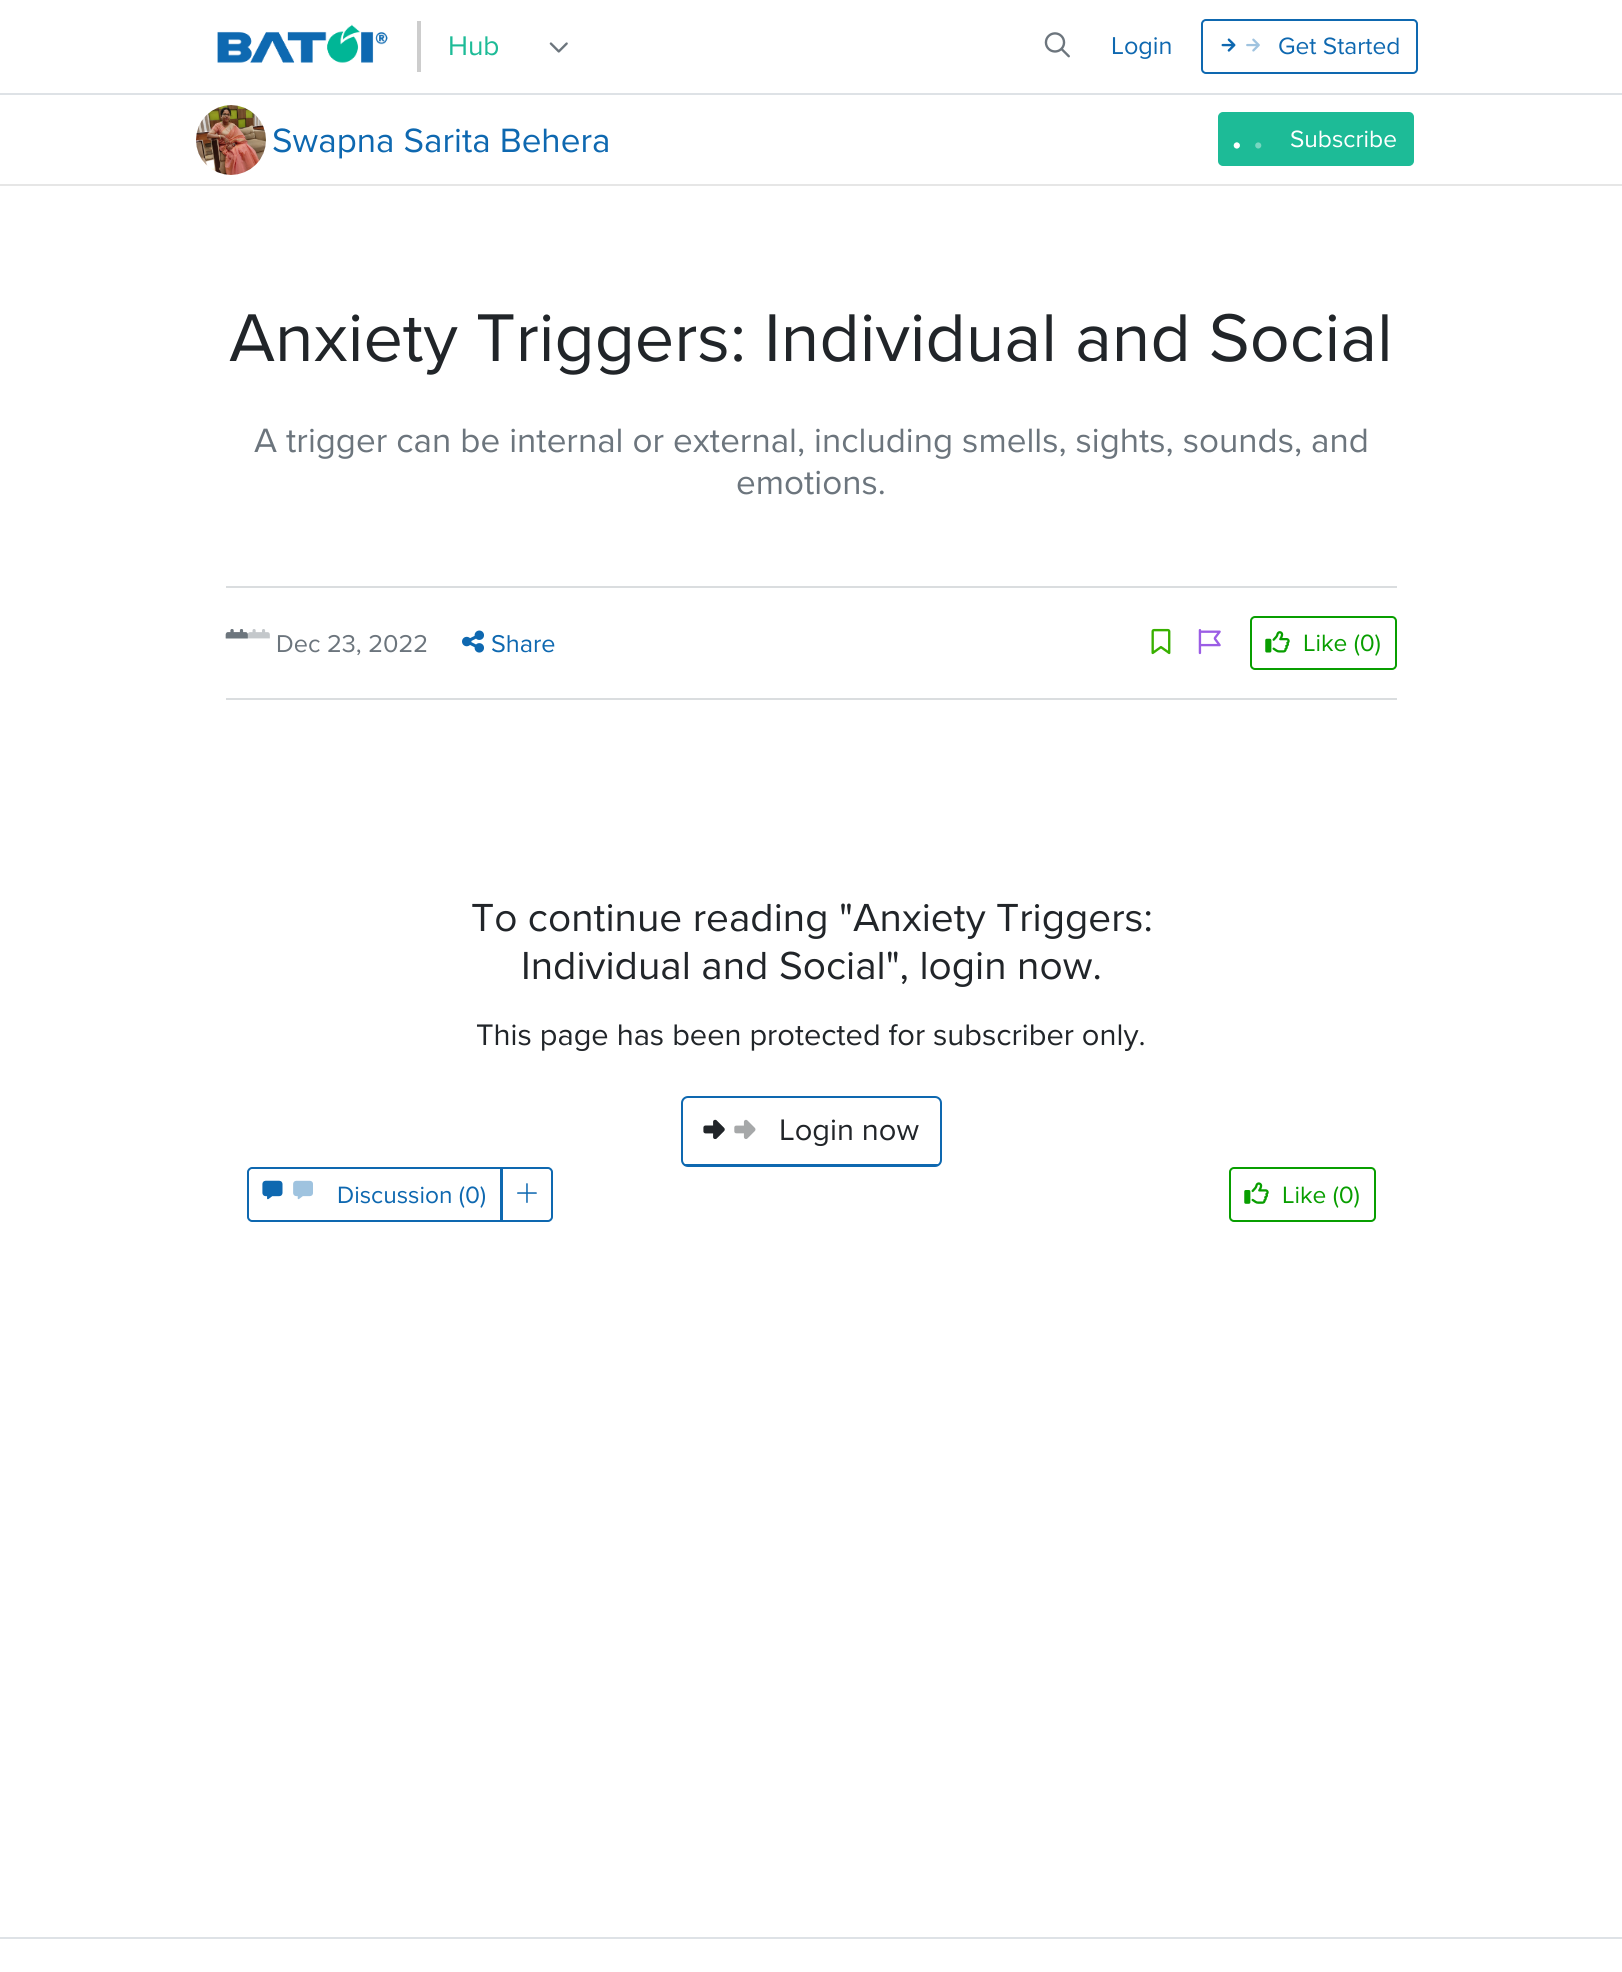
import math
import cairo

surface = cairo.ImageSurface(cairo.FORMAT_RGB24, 1622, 1972)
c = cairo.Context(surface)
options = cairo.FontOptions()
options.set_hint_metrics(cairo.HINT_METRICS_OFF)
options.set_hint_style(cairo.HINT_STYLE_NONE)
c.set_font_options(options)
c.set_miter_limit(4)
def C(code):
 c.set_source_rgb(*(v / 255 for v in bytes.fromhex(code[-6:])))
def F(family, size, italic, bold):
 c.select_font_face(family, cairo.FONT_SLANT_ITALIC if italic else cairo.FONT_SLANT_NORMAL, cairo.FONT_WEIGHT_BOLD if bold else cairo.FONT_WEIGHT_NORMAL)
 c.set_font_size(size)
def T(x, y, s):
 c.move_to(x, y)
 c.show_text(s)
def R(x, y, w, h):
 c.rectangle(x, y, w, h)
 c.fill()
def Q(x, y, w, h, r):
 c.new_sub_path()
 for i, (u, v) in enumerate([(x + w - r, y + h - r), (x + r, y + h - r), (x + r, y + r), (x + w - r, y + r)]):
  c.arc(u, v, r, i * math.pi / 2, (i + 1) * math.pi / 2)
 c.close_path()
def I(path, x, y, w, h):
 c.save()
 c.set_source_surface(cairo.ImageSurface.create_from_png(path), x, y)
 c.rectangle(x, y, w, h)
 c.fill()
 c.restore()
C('ffffff')
c.paint()
I('1.png',217,24,171,39)
C('cdcdcd')
R(417,21,4,51)
F('Proxima Nova',28,0,0)
C('1dbb97')
T(448,55,'Hub')
I('2.png',549,42,19,11)
I('3.png',1044,32,26,26)
F('Proxima Nova',25.25,0,0)
C('0e68b0')
T(1111,54,'Login')
Q(1202,20,215,53,4)
c.stroke()
I('4.png',1221,38,15,14)
I('5.png',1221,38,39,14)
F('Proxima Nova',24.5,0,0)
T(1278,54,'Get Started')
C('dee2e6')
R(0,93,1622,2)
C('e6e6e6')
R(0,184,1622,2)
I('6.png',196,105,70,70)
F('Proxima Nova',35,0,0)
C('0e68b0')
T(272,152,'Swapna Sarita Behera')
C('1dbb97')
Q(1219,113,194,52,4)
c.fill_preserve()
c.stroke()
I('7.png',1233,142,7,7)
I('8.png',1233,142,29,7)
F('Proxima Nova',24.5,0,0)
C('ffffff')
T(1290,147,'Subscribe')
F('Proxima Nova',70,0,0)
C('212529')
T(229,361,'Anxiety Triggers: Individual and Social')
F('Proxima Nova',35,0,0)
C('6c757d')
T(254,452,'A trigger can be internal or external, including smells, sights, sounds, and')
T(736,494,'emotions.')
C('dadddf')
R(226,586,1171,2)
I('9.png',225,629,23,10)
I('10.png',225,629,45,10)
F('Proxima Nova',25.25,0,0)
C('6c757d')
T(276,652,'Dec 23, 2022')
I('11.png',462,630,22,23)
C('0e68b0')
T(491,652,'Share')
I('12.png',1151,628,20,27)
I('13.png',1198,629,23,26)
Q(1251,617,145,52,4)
C('089e00')
c.stroke()
I('14.png',1265,631,25,22)
F('Proxima Nova',24.5,0,0)
T(1303,651,'Like (0)')
C('dadddf')
R(226,698,1171,2)
F('Proxima Nova',40.6,0,0)
C('212529')
T(471,931,'To continue reading "Anxiety Triggers:')
T(521,979,'Individual and Social", login now.')
F('Proxima Nova',30.8,0,0)
T(476,1045,'This page has been protected for subscriber only.')
Q(682,1097,259,69,6)
C('0e68b0')
c.stroke()
R(684,1164,254,2)
I('15.png',703,1119,22,21)
I('16.png',703,1119,53,20)
C('212529')
T(779,1140,'Login now')
c.new_path()
c.move_to(252,1168)
c.line_to(501,1168)
c.line_to(501,1221)
c.line_to(252,1221)
c.curve_to(250,1221,248,1219,248,1217)
c.line_to(248,1172)
c.curve_to(248,1170,250,1168,252,1168)
c.close_path()
C('0e68b0')
c.stroke()
I('17.png',262,1180,21,20)
I('18.png',262,1180,51,20)
F('Proxima Nova',24.5,0,0)
T(337,1203,'Discussion (0)')
c.new_path()
c.move_to(502,1168)
c.line_to(548,1168)
c.curve_to(550,1168,552,1170,552,1172)
c.line_to(552,1217)
c.curve_to(552,1219,550,1221,548,1221)
c.line_to(502,1221)
c.close_path()
c.stroke()
I('19.png',517,1183,20,20)
Q(1230,1168,145,53,4)
C('089e00')
c.stroke()
I('20.png',1244,1182,25,22)
T(1282,1203,'Like (0)')
C('dee2e6')
R(0,1937,1622,2)
surface.write_to_png('o.png')
